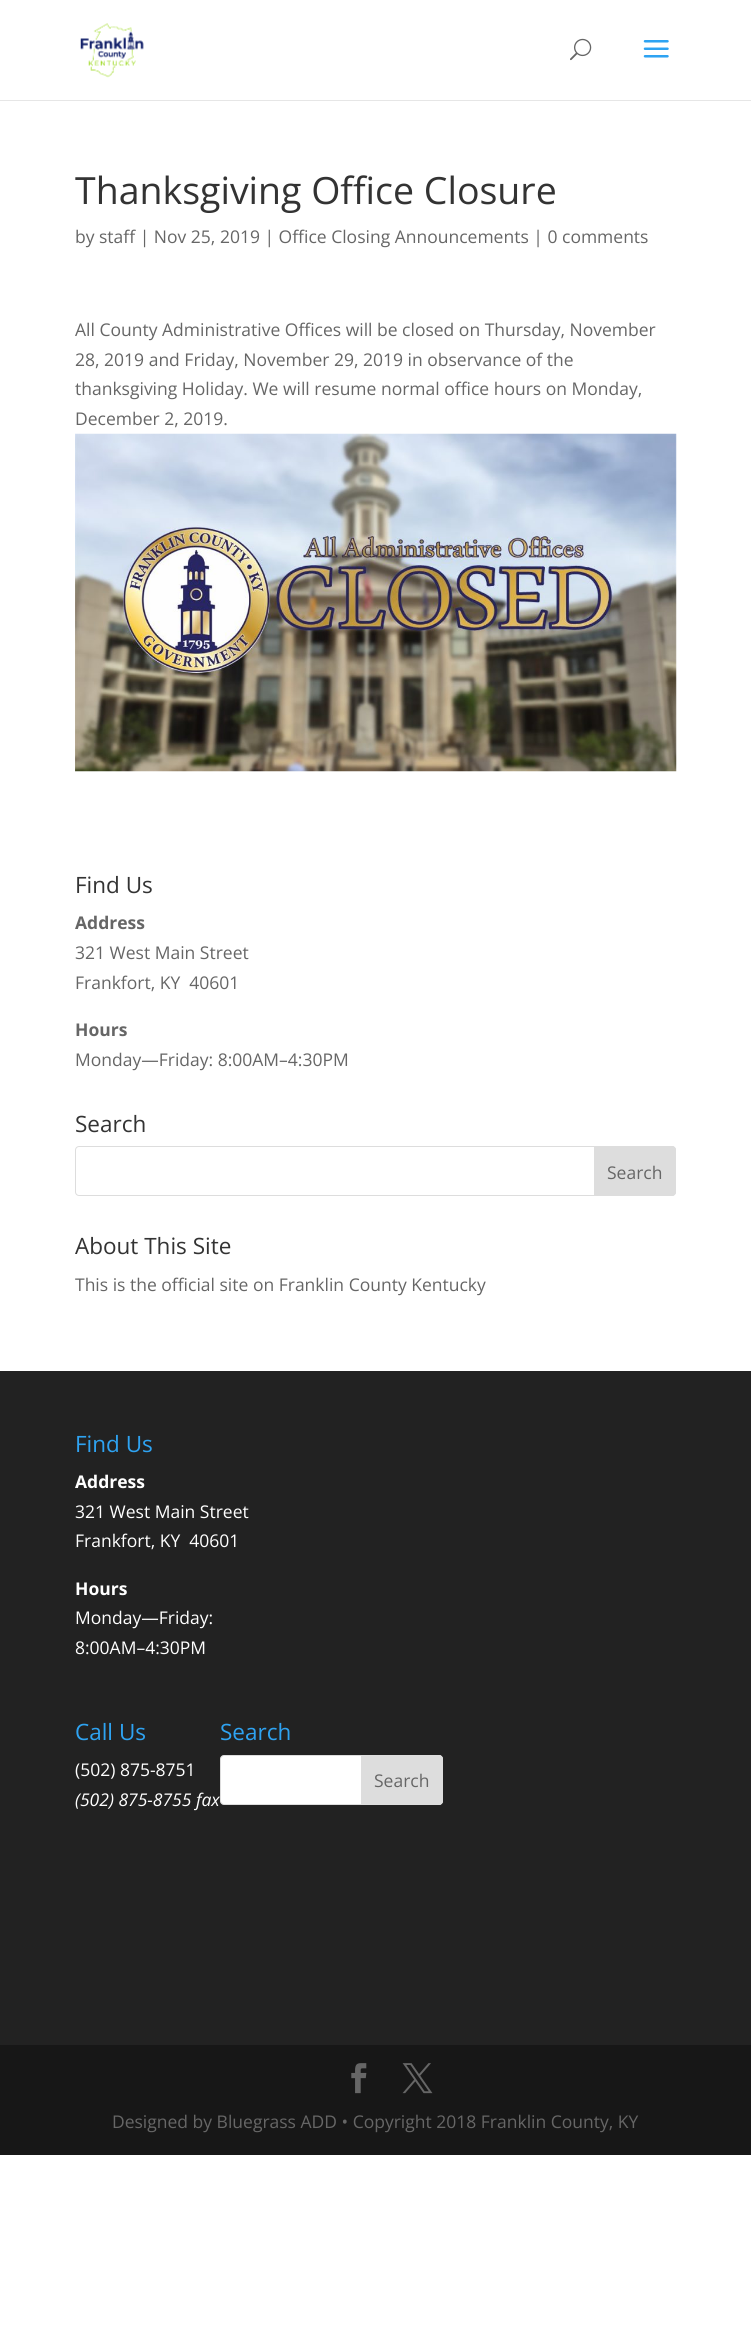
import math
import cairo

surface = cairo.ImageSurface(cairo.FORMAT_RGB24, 751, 2340)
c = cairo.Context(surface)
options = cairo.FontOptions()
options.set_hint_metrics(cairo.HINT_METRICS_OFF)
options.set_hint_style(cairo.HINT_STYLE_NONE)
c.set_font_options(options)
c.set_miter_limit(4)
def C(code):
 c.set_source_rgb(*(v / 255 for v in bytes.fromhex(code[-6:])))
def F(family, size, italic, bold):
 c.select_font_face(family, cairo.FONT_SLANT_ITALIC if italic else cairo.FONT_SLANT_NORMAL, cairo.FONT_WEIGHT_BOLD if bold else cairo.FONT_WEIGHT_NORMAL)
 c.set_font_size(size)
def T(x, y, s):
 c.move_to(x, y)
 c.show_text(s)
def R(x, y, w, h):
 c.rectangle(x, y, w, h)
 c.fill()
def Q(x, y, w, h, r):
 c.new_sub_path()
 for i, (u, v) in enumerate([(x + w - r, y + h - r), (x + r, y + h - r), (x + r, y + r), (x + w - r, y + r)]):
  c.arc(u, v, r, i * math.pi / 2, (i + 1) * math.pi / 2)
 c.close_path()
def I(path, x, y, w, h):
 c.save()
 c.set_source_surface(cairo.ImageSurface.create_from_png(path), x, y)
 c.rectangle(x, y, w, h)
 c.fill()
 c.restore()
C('ffffff')
c.paint()
C('e6e6e6')
R(0,100,751,1)
I('1.png',80,23,64,55)
I('2.png',570,38,22,23)
I('3.png',643,40,26,18)
F('Open Sans',37.5,0,0)
C('333333')
T(75,204,'Thanksgiving Office Closure')
F('Open Sans',17.5,0,0)
C('666666')
T(75,243,'by staff | Nov 25, 2019 | Office Closing Announcements | 0 comments')
T(75,336,'All County Administrative Offices will be closed on Thursday, November')
T(75,366,'28, 2019 and Friday, November 29, 2019 in observance of the')
T(75,395,'thanksgiving Holiday. We will resume normal office hours on Monday,')
T(75,425,'December 2, 2019.')
I('4.png',75,433,602,339)
F('Open Sans',22.5,0,0)
C('333333')
T(75,893,'Find Us')
F('Open Sans',17.5,0,1)
C('666666')
T(75,929,'Address')
F('Open Sans',17.5,0,0)
T(75,959,'321 West Main Street')
T(75,989,'Frankfort, KY  40601')
F('Open Sans',17.5,0,1)
T(75,1036,'Hours')
F('Open Sans',17.5,0,0)
T(75,1066,'Monday—Friday: 8:00AM–4:30PM')
F('Open Sans',22.5,0,0)
C('333333')
T(75,1132,'Search')
Q(75.5,1146.5,600,49,3.5)
C('dddddd')
c.set_line_width(1)
c.stroke()
c.new_path()
c.move_to(594.5,1146.5)
c.line_to(672,1146.5)
c.curve_to(674,1146.5,675.5,1148,675.5,1150)
c.line_to(675.5,1192)
c.curve_to(675.5,1194,674,1195.5,672,1195.5)
c.line_to(594.5,1195.5)
c.close_path()
c.fill_preserve()
c.stroke()
F('Open Sans',17.5,0,0)
C('666666')
T(607,1179,'Search')
F('Open Sans',22.5,0,0)
C('333333')
T(75,1254,'About This Site')
F('Open Sans',17.5,0,0)
C('666666')
T(75,1291,'This is the official site on Franklin County Kentucky')
C('222222')
R(0,1371,751,674)
F('Open Sans',22.5,0,0)
C('2ea3f2')
T(75,1452,'Find Us')
F('Open Sans',17.5,0,1)
C('ffffff')
T(75,1488,'Address')
F('Open Sans',17.5,0,0)
T(75,1518,'321 West Main Street')
T(75,1547,'Frankfort, KY  40601')
F('Open Sans',17.5,0,1)
T(75,1595,'Hours')
F('Open Sans',17.5,0,0)
T(75,1624,'Monday—Friday:')
T(75,1654,'8:00AM–4:30PM')
F('Open Sans',22.5,0,0)
C('2ea3f2')
T(75,1740,'Call Us')
F('Open Sans',17.5,0,0)
C('ffffff')
T(75,1776,'(502) 875-8751')
F('Open Sans',17.5,1,0)
T(75,1806,'(502) 875-8755 fax')
F('Open Sans',22.5,0,0)
C('2ea3f2')
T(220,1740,'Search')
C('ffffff')
Q(220.5,1755.5,222,49,3.5)
c.fill_preserve()
C('dddddd')
c.stroke()
c.new_path()
c.move_to(361.5,1755.5)
c.line_to(439,1755.5)
c.curve_to(441,1755.5,442.5,1757,442.5,1759)
c.line_to(442.5,1801)
c.curve_to(442.5,1803,441,1804.5,439,1804.5)
c.line_to(361.5,1804.5)
c.close_path()
c.fill_preserve()
c.stroke()
F('Open Sans',17.5,0,0)
C('666666')
T(374,1787,'Search')
C('171717')
R(0,2045,751,110)
I('5.png',351,2063,16,31)
I('6.png',402,2063,31,31)
C('666666')
T(112,2128,'Designed by Bluegrass ADD • Copyright 2018 Franklin County, KY')
surface.write_to_png('o.png')
